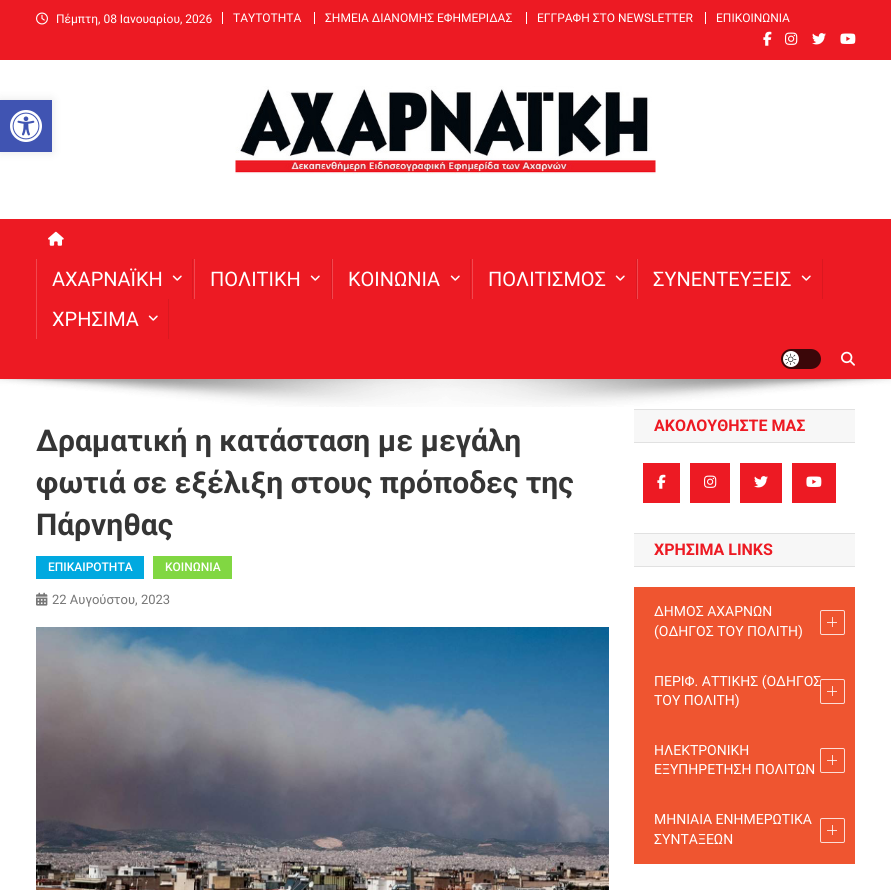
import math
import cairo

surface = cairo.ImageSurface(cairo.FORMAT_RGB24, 891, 890)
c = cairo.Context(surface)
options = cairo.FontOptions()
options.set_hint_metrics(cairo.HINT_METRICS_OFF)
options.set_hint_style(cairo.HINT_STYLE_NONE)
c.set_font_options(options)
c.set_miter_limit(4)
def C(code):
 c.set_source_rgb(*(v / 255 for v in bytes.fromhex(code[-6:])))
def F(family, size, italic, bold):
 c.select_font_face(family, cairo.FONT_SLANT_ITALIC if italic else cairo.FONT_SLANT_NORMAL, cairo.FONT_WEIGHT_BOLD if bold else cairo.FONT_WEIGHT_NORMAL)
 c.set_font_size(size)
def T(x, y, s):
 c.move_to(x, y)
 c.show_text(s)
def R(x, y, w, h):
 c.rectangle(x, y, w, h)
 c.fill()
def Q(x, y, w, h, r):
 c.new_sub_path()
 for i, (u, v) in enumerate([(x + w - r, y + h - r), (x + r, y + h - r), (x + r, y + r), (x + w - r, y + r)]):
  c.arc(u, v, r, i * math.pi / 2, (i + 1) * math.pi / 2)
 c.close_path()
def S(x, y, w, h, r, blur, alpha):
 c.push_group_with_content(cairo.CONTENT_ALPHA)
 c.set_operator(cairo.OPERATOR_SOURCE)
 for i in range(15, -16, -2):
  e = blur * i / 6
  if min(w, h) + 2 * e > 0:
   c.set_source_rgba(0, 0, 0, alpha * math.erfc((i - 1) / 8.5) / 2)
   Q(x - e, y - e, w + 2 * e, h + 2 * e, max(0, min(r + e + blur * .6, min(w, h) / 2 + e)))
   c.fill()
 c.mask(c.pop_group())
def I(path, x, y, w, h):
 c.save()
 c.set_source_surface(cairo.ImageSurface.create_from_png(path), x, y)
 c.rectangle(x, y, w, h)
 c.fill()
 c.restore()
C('ffffff')
c.paint()
C('000000')
S(0,100,52,52,0,5,.1)
C('4054b2')
R(0,100,52,52)
I('1.png',10,110,32,32)
C('ed1a23')
R(0,0,891,60)
I('2.png',36,12,12,13)
F('Roboto',12,0,0)
C('ffffff')
T(56,23,'Πέμπτη, 08 Ιανουαρίου, 2026')
R(222,12,1,12)
T(233,22,'ΤΑΥΤΟΤΗΤΑ')
R(314,12,1,12)
T(325,22,'ΣΗΜΕΙΑ ΔΙΑΝΟΜΗΣ ΕΦΗΜΕΡΙΔΑΣ')
R(526,12,1,12)
T(537,22,'ΕΓΓΡΑΦΗ ΣΤΟ NEWSLETTER')
R(705,12,1,12)
T(716,22,'ΕΠΙΚΟΙΝΩΝΙΑ')
I('3.png',763,31,9,15)
I('4.png',785,32,13,13)
I('5.png',812,33,14,12)
I('6.png',840,33,16,11)
I('7.png',235,86,421,88)
C('ed1a23')
R(0,219,891,160)
I('8.png',48,231,16,15)
C('da1820')
R(192,259,1,40)
C('f1484f')
R(36,259,1,80)
F('Roboto',20,0,0)
C('ffffff')
T(52,286,'ΑΧΑΡΝΑΪΚΗ')
I('9.png',172,275,10,6)
C('da1820')
R(331,259,1,40)
C('f1484f')
R(194,259,1,40)
C('ffffff')
T(210,286,'ΠΟΛΙΤΙΚΗ')
I('9.png',310,275,10,6)
C('da1820')
R(470,259,1,40)
C('f1484f')
R(332,259,1,40)
C('ffffff')
T(348,286,'ΚΟΙΝΩΝΙΑ')
I('9.png',450,275,10,6)
C('da1820')
R(636,259,1,40)
C('f1484f')
R(472,259,1,40)
C('ffffff')
T(488,286,'ΠΟΛΙΤΙΣΜΟΣ')
I('9.png',615,275,10,6)
C('da1820')
R(822,259,1,40)
C('f1484f')
R(637,259,1,40)
C('ffffff')
T(653,286,'ΣΥΝΕΝΤΕΥΞΕΙΣ')
I('9.png',801,275,10,6)
C('da1820')
R(168,299,1,40)
C('ffffff')
T(52,326,'ΧΡΗΣΙΜΑ')
I('9.png',148,315,10,6)
C('3b0709')
Q(781,349,40,20,10)
c.fill()
C('ffffff')
c.arc(791,359,8,0,2 * math.pi)
c.fill()
I('10.png',785,353,12,12)
I('11.png',841,351,14,15)
I('12.png',0,379,891,28)
F('Roboto',30,0,1)
C('353535')
T(36,451,'Δραματική η κατάσταση με μεγάλη')
T(36,493,'φωτιά σε εξέλιξη στους πρόποδες της')
T(36,535,'Πάρνηθας')
C('00a9e0')
R(36,556,108,23)
F('Roboto Medium',12,0,0)
C('ffffff')
T(48,571,'ΕΠΙΚΑΙΡΟΤΗΤΑ')
C('81d742')
R(153,556,79,23)
C('ffffff')
T(165,571,'ΚΟΙΝΩΝΙΑ')
I('13.png',36,592,12,14)
F('Roboto',13,0,0)
C('767676')
T(52,604,'22 Αυγούστου, 2023')
I('14.png',36,627,573,263)
C('f7f7f7')
R(634,410,221,32)
C('e1e1e1')
R(634,409,221,1)
R(634,442,221,1)
F('Roboto',16,0,1)
C('ed1a23')
T(654,431,'ΑΚΟΛΟΥΘΗΣΤΕ ΜΑΣ')
R(643,463,37,40)
I('3.png',657,474,9,15)
R(690,463,40,40)
I('4.png',704,475,13,13)
R(740,463,42,40)
I('5.png',754,476,14,12)
R(792,463,44,40)
I('6.png',806,476,16,11)
C('f7f7f7')
R(634,534,221,32)
C('e1e1e1')
R(634,533,221,1)
R(634,566,221,1)
C('ed1a23')
T(654,555,'ΧΡΗΣΙΜΑ LINKS')
C('ef5530')
R(634,587,221,277)
C('fcddd6')
R(827,830,10,1)
R(827,760,10,1)
R(827,691,10,1)
R(827,622,10,1)
F('Roboto',14,0,0)
C('ffffff')
T(654,616,'ΔΗΜΟΣ ΑΧΑΡΝΩΝ')
Q(820.5,610.5,24,24,1.5)
C('fcddd6')
c.set_line_width(1)
c.stroke()
R(832,617,1,10)
C('fef8f7')
R(832,622,1,1)
C('ffffff')
T(654,636,'(ΟΔΗΓΟΣ TOY ΠΟΛΙΤΗ)')
T(654,686,'ΠΕΡΙΦ. ΑΤΤΙΚΗΣ (ΟΔΗΓΟΣ')
Q(820.5,679.5,24,24,1.5)
c.set_source_rgba(1,1,1,0.8)
c.stroke()
C('fcddd6')
R(832,686,1,10)
C('fef8f7')
R(832,691,1,1)
C('ffffff')
T(654,705,'TOY ΠΟΛΙΤΗ)')
T(654,755,'ΗΛΕΚΤΡΟΝΙΚΗ')
Q(820.5,748.5,24,24,1.5)
C('fcddd6')
c.stroke()
R(832,755,1,10)
C('fef8f7')
R(832,760,1,1)
C('ffffff')
T(654,774,'ΕΞΥΠΗΡΕΤΗΣΗ ΠΟΛΙΤΩΝ')
T(654,824,'ΜΗΝΙΑΙΑ ΕΝΗΜΕΡΩΤΙΚΑ')
Q(820.5,818.5,24,24,1.5)
C('fcddd6')
c.stroke()
R(832,825,1,10)
C('fef8f7')
R(832,830,1,1)
C('ffffff')
T(654,844,'ΣΥΝΤΑΞΕΩΝ')
surface.write_to_png('o.png')
